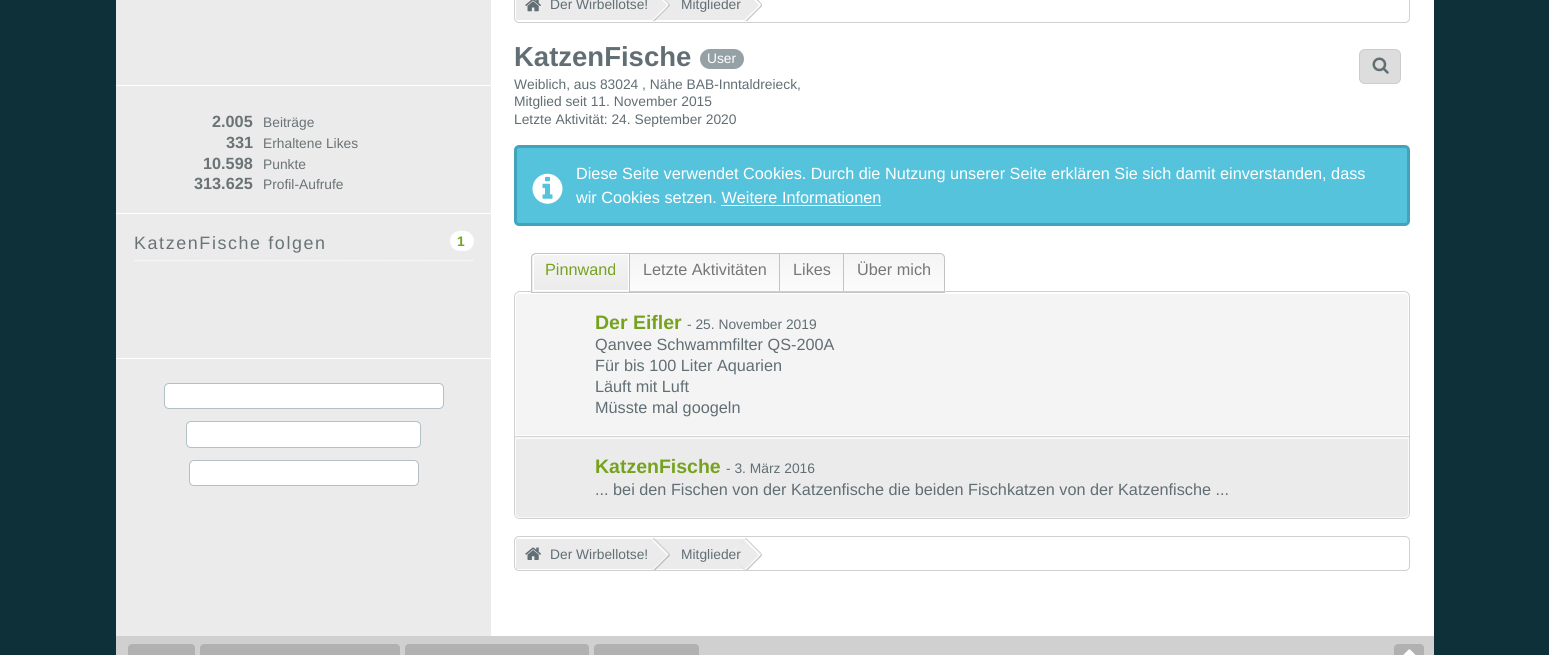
import math
import cairo

surface = cairo.ImageSurface(cairo.FORMAT_RGB24, 1549, 655)
c = cairo.Context(surface)
options = cairo.FontOptions()
options.set_hint_metrics(cairo.HINT_METRICS_OFF)
options.set_hint_style(cairo.HINT_STYLE_NONE)
c.set_font_options(options)
c.set_miter_limit(4)
def C(code):
 c.set_source_rgb(*(v / 255 for v in bytes.fromhex(code[-6:])))
def F(family, size, italic, bold):
 c.select_font_face(family, cairo.FONT_SLANT_ITALIC if italic else cairo.FONT_SLANT_NORMAL, cairo.FONT_WEIGHT_BOLD if bold else cairo.FONT_WEIGHT_NORMAL)
 c.set_font_size(size)
def T(x, y, s):
 c.move_to(x, y)
 c.show_text(s)
def L(x, y, s, letter, word):
 c.move_to(x, y)
 for ch in s:
  c.show_text(ch)
  c.rel_move_to(letter + word * (ch == ' '), 0)
def R(x, y, w, h):
 c.rectangle(x, y, w, h)
 c.fill()
def Q(x, y, w, h, r):
 c.new_sub_path()
 for i, (u, v) in enumerate([(x + w - r, y + h - r), (x + r, y + h - r), (x + r, y + r), (x + w - r, y + r)]):
  c.arc(u, v, r, i * math.pi / 2, (i + 1) * math.pi / 2)
 c.close_path()
def I(path, x, y, w, h):
 c.save()
 c.set_source_surface(cairo.ImageSurface.create_from_png(path), x, y)
 c.rectangle(x, y, w, h)
 c.fill()
 c.restore()
C('0d3039')
c.paint()
C('ffffff')
R(491,0,943,636)
C('ebebeb')
R(116,0,375,636)
C('ffffff')
R(116,85,375,1)
R(116,213,375,1)
F('Liberation Sans',16.25,0,1)
C('6a7376')
T(212,127,'2.005')
F('Liberation Sans',13.8,0,0)
T(263,127,'Beiträge')
F('Liberation Sans',16.25,0,1)
T(226,148,'331')
F('Liberation Sans',13.8,0,0)
T(263,148,'Erhaltene Likes')
F('Liberation Sans',16.25,0,1)
T(203,169,'10.598')
F('Liberation Sans',13.8,0,0)
T(263,169,'Punkte')
F('Liberation Sans',16.25,0,1)
T(194,189,'313.625')
F('Liberation Sans',13.8,0,0)
T(263,189,'Profil-Aufrufe')
C('ffffff')
R(116,358,375,1)
c.new_path()
c.move_to(134,260.5)
c.line_to(474,260.5)
c.set_line_width(1.2)
c.set_dash([1.25,1.25])
c.stroke()
F('Liberation Sans',17.9,0,0)
C('6a7376')
L(134,249,'KatzenFische folgen',1.6,0)
C('ffffff')
Q(450,231,24,20,10)
c.fill()
F('Liberation Sans',13.8,0,1)
C('76a21f')
L(457,246,'1',1.6,0)
C('ffffff')
Q(164.5,383.5,279,25,4.5)
c.fill_preserve()
C('b1c1c6')
c.set_line_width(1)
c.set_dash([])
c.stroke()
C('ffffff')
Q(186.5,421.5,234,26,4.5)
c.fill_preserve()
C('b1c1c6')
c.stroke()
C('ffffff')
Q(189.5,460.5,229,25,4.5)
c.fill_preserve()
C('b1c1c6')
c.stroke()
Q(514.5,-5.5,895,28,4.5)
C('d0d0d0')
c.stroke()
C('ebebeb')
R(516,0,136,20)
I('1.png',525,0,16,12)
R(656,0,88,20)
c.new_path()
c.move_to(653,21)
c.line_to(637,5)
c.line_to(653,-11)
c.line_to(655,-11)
c.line_to(669,3)
c.curve_to(670,4,670,6,669,7)
c.line_to(655,21)
c.close_path()
c.fill()
F('Liberation Sans',13.8,0,0)
C('616e73')
T(550,9,'Der Wirbellotse!')
c.set_source_rgba(1,1,1,0.7)
c.new_path()
c.move_to(652,20)
c.line_to(667,5)
c.curve_to(668,5,668,4.5,667.5,3.5)
c.line_to(668,4)
c.curve_to(668.5,4.5,668.5,5.5,668,6)
c.line_to(653,21)
c.close_path()
c.fill()
C('ffffff')
c.new_path()
c.move_to(653,-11)
c.line_to(668,4)
c.curve_to(668.5,4.5,668.5,5.5,668,6)
c.line_to(667.5,6.5)
c.curve_to(668,5.5,668,5,667,5)
c.line_to(652,-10)
c.close_path()
c.fill()
C('d0d0d0')
c.new_path()
c.move_to(653,-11)
c.line_to(654.5,-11)
c.line_to(669.5,4)
c.line_to(670,5)
c.line_to(668.5,5)
c.curve_to(668.5,3.5,655,-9,653,-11)
c.close_path()
c.fill()
C('bebebe')
c.new_path()
c.move_to(653,21)
c.curve_to(655,19,668.5,6.5,668.5,5)
c.line_to(670,5)
c.line_to(669.5,6)
c.line_to(654.5,21)
c.close_path()
c.fill()
C('ebebeb')
c.new_path()
c.move_to(745,21)
c.line_to(729.5,5)
c.line_to(745,-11)
c.line_to(747,-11)
c.line_to(761,3)
c.curve_to(762,4,762,6,761,7)
c.line_to(747,21)
c.close_path()
c.fill()
C('f9f9f9')
c.set_fill_rule(cairo.FILL_RULE_EVEN_ODD)
c.new_path()
c.move_to(729.5,4.5)
c.line_to(729.5,5)
c.line_to(737.5,13.5)
c.close_path()
c.move_to(745.5,-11)
c.line_to(760.5,4)
c.curve_to(761,4.5,761,5.5,760.5,6)
c.line_to(745.5,21)
c.line_to(744,20)
c.line_to(759,5)
c.curve_to(762.5,5,753.5,-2.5,745,-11)
c.close_path()
c.fill()
C('ffffff')
c.new_path()
c.move_to(737.5,-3.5)
c.line_to(729.5,5)
c.line_to(729.5,5.5)
c.close_path()
c.move_to(745.5,-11)
c.line_to(760.5,4)
c.curve_to(761,4.5,761,5.5,760.5,6)
c.line_to(745,21)
c.curve_to(753.5,12.5,762.5,5,759,5)
c.line_to(744,-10)
c.close_path()
c.fill()
C('616e73')
T(681,9,'Mitglieder')
C('d0d0d0')
c.new_path()
c.move_to(745.5,-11)
c.line_to(747,-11)
c.line_to(761,3)
c.curve_to(761.5,3.5,762,4,762,5)
c.line_to(761,5)
c.line_to(760.5,4)
c.close_path()
c.move_to(745.5,-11)
c.line_to(738,-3.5)
c.close_path()
c.fill()
C('bebebe')
c.new_path()
c.move_to(738,13.5)
c.line_to(745.5,21)
c.close_path()
c.move_to(762,5)
c.curve_to(762,6,761.5,6.5,761,7)
c.line_to(747,21)
c.line_to(745.5,21)
c.curve_to(747.5,19,761,6.5,761,5)
c.close_path()
c.fill()
F('Liberation Sans',27.5,0,1)
C('616e73')
T(514,66,'KatzenFische')
C('95a1a5')
Q(700,49,44,20,10)
c.fill()
F('Liberation Sans',13.8,0,0)
C('ffffff')
T(707,63,'User')
C('dddddd')
Q(1359.5,49.5,41,34,5.5)
c.fill_preserve()
C('cccccc')
c.stroke()
I('2.png',1372,57,17,17)
C('616e73')
T(514,89,'Weiblich, aus 83024 , Nähe BAB-Inntaldreieck,')
T(514,106,'Mitglied seit 11. November 2015')
T(514,124,'Letzte Aktivität: 24. September 2020')
C('56c3dc')
Q(515.5,146.5,893,78,3.5)
c.fill_preserve()
C('41a4bb')
c.set_line_width(3)
c.stroke()
I('3.png',532,173,31,31)
F('Liberation Sans',16.25,0,0)
C('ffffff')
T(576,179,'Diese Seite verwendet Cookies. Durch die Nutzung unserer Seite erklären Sie sich damit einverstanden, dass')
T(576,203,'wir Cookies setzen. Weitere Informationen')
R(721,205,160,1)
gradient = cairo.LinearGradient(704,254,704,291)
gradient.add_color_stop_rgba(0,0.957,0.957,0.957,1)
gradient.add_color_stop_rgba(1,0.988,0.988,0.988,1)
c.set_source(gradient)
R(630,254,149,37)
c.rectangle(629.5,253.5,150,39)
C('c3c3c3')
c.set_line_width(1)
c.stroke()
gradient = cairo.LinearGradient(811,254,811,291)
gradient.add_color_stop_rgba(0,0.957,0.957,0.957,1)
gradient.add_color_stop_rgba(1,0.988,0.988,0.988,1)
c.set_source(gradient)
R(780,254,63,37)
c.rectangle(779.5,253.5,64,39)
C('c3c3c3')
c.stroke()
c.save()
c.set_fill_rule(cairo.FILL_RULE_WINDING)
c.new_path()
c.move_to(843,253)
c.line_to(940,253)
c.curve_to(943,253,945,255,945,258)
c.line_to(945,293)
c.line_to(843,293)
c.close_path()
c.clip()
gradient = cairo.LinearGradient(894,254,894,291)
gradient.add_color_stop_rgba(0,0.957,0.957,0.957,1)
gradient.add_color_stop_rgba(1,0.988,0.988,0.988,1)
c.set_source(gradient)
R(844,254,101,37)
c.restore()
c.new_path()
c.move_to(843.5,253.5)
c.line_to(940,253.5)
c.curve_to(942.5,253.5,944.5,255.5,944.5,258)
c.line_to(944.5,292.5)
c.line_to(843.5,292.5)
c.close_path()
c.stroke()
C('f4f4f4')
Q(515,293,894,225,5)
c.fill()
Q(515.5,293.5,893,224,4.5)
c.set_source_rgba(1,1,1,0.7)
c.stroke()
Q(514.5,291.5,895,227,5.5)
C('d0d0d0')
c.stroke()
C('f4f4f4')
c.new_path()
c.move_to(536,253)
c.line_to(630,253)
c.line_to(630,293)
c.line_to(531,293)
c.line_to(531,258)
c.curve_to(531,255,533,253,536,253)
c.close_path()
c.fill()
c.save()
c.set_fill_rule(cairo.FILL_RULE_WINDING)
c.new_path()
c.move_to(536,253)
c.line_to(630,253)
c.line_to(630,293)
c.line_to(531,293)
c.line_to(531,258)
c.curve_to(531,255,533,253,536,253)
c.close_path()
c.clip()
gradient = cairo.LinearGradient(581,254,581,291)
gradient.add_color_stop_rgba(0,0.957,0.957,0.957,1)
gradient.add_color_stop_rgba(1,0.922,0.922,0.922,1)
c.set_source(gradient)
R(531,254,97,37)
c.restore()
c.new_path()
c.move_to(537,254.5)
c.line_to(628.5,254.5)
c.line_to(628.5,290.5)
c.line_to(533.5,290.5)
c.line_to(533.5,258)
c.curve_to(533.5,256,535,254.5,537,254.5)
c.close_path()
C('ffffff')
c.stroke()
c.new_path()
c.move_to(536,253.5)
c.line_to(629.5,253.5)
c.line_to(629.5,292.5)
c.line_to(531.5,292.5)
c.line_to(531.5,258)
c.curve_to(531.5,255.5,533.5,253.5,536,253.5)
c.close_path()
C('c3c3c3')
c.stroke()
C('76a21f')
T(545,275,'Pinnwand')
C('777777')
T(643,275,'Letzte Aktivitäten')
T(793,275,'Likes')
T(857,275,'Über mich')
c.new_path()
c.move_to(520,293.5)
c.line_to(1404,293.5)
c.curve_to(1406.5,293.5,1408.5,295.5,1408.5,298)
c.line_to(1408.5,435.5)
c.line_to(515.5,435.5)
c.line_to(515.5,298)
c.curve_to(515.5,295.5,517.5,293.5,520,293.5)
c.close_path()
c.set_source_rgba(1,1,1,0.7)
c.stroke()
C('d5d5d5')
R(515,436,894,1)
F('Liberation Sans',19.5,0,1)
C('76a21f')
T(595,329,'Der Eifler')
F('Liberation Sans',13.8,0,0)
C('616e73')
T(687,329,'- 25. November 2019')
F('Liberation Sans',16.25,0,0)
T(595,350,'Qanvee Schwammfilter QS-200A')
T(595,371,'Für bis 100 Liter Aquarien')
T(595,392,'Läuft mit Luft')
T(595,413,'Müsste mal googeln')
C('ebebeb')
c.new_path()
c.move_to(515,438)
c.line_to(1409,438)
c.line_to(1409,513)
c.curve_to(1409,516,1407,518,1404,518)
c.line_to(520,518)
c.curve_to(517,518,515,516,515,513)
c.close_path()
c.fill()
c.new_path()
c.move_to(515.5,438.5)
c.line_to(1408.5,438.5)
c.line_to(1408.5,513)
c.curve_to(1408.5,515.5,1406.5,517.5,1404,517.5)
c.line_to(520,517.5)
c.curve_to(517.5,517.5,515.5,515.5,515.5,513)
c.close_path()
c.set_source_rgba(1,1,1,0.7)
c.stroke()
F('Liberation Sans',19.5,0,1)
C('76a21f')
T(595,473,'KatzenFische')
F('Liberation Sans',13.8,0,0)
C('616e73')
T(726,473,'- 3. März 2016')
F('Liberation Sans',16.25,0,0)
T(595,495,'... bei den Fischen von der Katzenfische die beiden Fischkatzen von der Katzenfische ...')
Q(514.5,536.5,895,34,4.5)
C('d0d0d0')
c.stroke()
C('ebebeb')
R(516,539,232,30)
I('4.png',525,547,16,13)
c.set_fill_rule(cairo.FILL_RULE_WINDING)
c.new_path()
c.move_to(654,538)
c.line_to(669,553)
c.curve_to(670,554,670,555.5,669,556.5)
c.line_to(655.5,570)
c.line_to(652.5,570)
c.line_to(637,554.5)
c.close_path()
c.fill()
c.set_source_rgba(1,1,1,0.7)
c.set_fill_rule(cairo.FILL_RULE_EVEN_ODD)
c.new_path()
c.move_to(653.5,570)
c.line_to(652,570)
c.curve_to(654,568,668,555,668,553.5)
c.line_to(668,554)
c.curve_to(668.5,554.5,668.5,555,668,555.5)
c.close_path()
c.move_to(653,539)
c.line_to(667,553)
c.close_path()
c.fill()
C('ffffff')
c.set_fill_rule(cairo.FILL_RULE_WINDING)
c.new_path()
c.move_to(652,540)
c.line_to(667,555)
c.curve_to(667.5,555,668,555.5,667.5,556)
c.line_to(668,555.5)
c.curve_to(668.5,555,668.5,554.5,668,554)
c.line_to(653,539)
c.line_to(637,555)
c.close_path()
c.fill()
C('d0d0d0')
c.new_path()
c.move_to(646.5,545)
c.line_to(654,538)
c.line_to(669.5,553.5)
c.line_to(670,554.5)
c.line_to(668.5,554.5)
c.curve_to(668.5,554,654.5,540.5,653,539)
c.close_path()
c.fill()
F('Liberation Sans',13.8,0,0)
C('616e73')
T(550,559,'Der Wirbellotse!')
C('bebebe')
c.new_path()
c.move_to(655.5,570)
c.line_to(653.5,570)
c.curve_to(655,568.5,668.5,555.5,668.5,554.5)
c.line_to(670,554.5)
c.line_to(669.5,556)
c.close_path()
c.fill()
C('ebebeb')
c.new_path()
c.move_to(746,538)
c.line_to(761,553)
c.curve_to(762,554,762,555.5,761,556.5)
c.line_to(747.5,570)
c.line_to(744.5,570)
c.line_to(729.5,554.5)
c.close_path()
c.fill()
C('f9f9f9')
c.set_fill_rule(cairo.FILL_RULE_EVEN_ODD)
c.new_path()
c.move_to(745.5,539)
c.line_to(760.5,554)
c.curve_to(761,554.5,761,555,760.5,555.5)
c.line_to(746,570)
c.line_to(744.5,570)
c.line_to(744.5,569.5)
c.line_to(759,555)
c.curve_to(760,554,760,553,759,553)
c.line_to(745,539)
c.close_path()
c.move_to(729.5,554.5)
c.line_to(734,559.5)
c.close_path()
c.fill()
C('ffffff')
c.new_path()
c.move_to(741.5,542.5)
c.line_to(729.5,554.5)
c.line_to(730,555)
c.close_path()
c.move_to(745.5,539)
c.line_to(760.5,554)
c.curve_to(761,554.5,761,555,760.5,555.5)
c.line_to(759,557)
c.curve_to(760,556,760,555,759,555)
c.line_to(744,540)
c.close_path()
c.fill()
C('d0d0d0')
c.set_fill_rule(cairo.FILL_RULE_WINDING)
c.new_path()
c.move_to(745.5,539)
c.line_to(738,546.5)
c.line_to(746,538)
c.line_to(761,553)
c.curve_to(761.5,553.5,761.5,554,762,554.5)
c.line_to(761,554.5)
c.line_to(760.5,554)
c.close_path()
c.fill()
C('bebebe')
c.set_fill_rule(cairo.FILL_RULE_EVEN_ODD)
c.new_path()
c.move_to(745,570)
c.line_to(744.5,570)
c.line_to(738,563)
c.close_path()
c.move_to(762,554.5)
c.curve_to(762,555.5,761.5,556,761,556.5)
c.line_to(747.5,570)
c.line_to(746,570)
c.curve_to(747.5,568.5,761,555.5,761,554.5)
c.close_path()
c.fill()
C('616e73')
T(681,559,'Mitglieder')
C('d0d0d0')
R(116,636,1318,19)
C('b1b1b1')
Q(128,644,67,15,4)
c.fill()
Q(200,644,200,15,4)
c.fill()
Q(405,644,184,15,4)
c.fill()
Q(594,644,105,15,4)
c.fill()
Q(1394,644,30,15,4)
c.fill()
I('5.png',1403,649,13,6)
surface.write_to_png('o.png')
